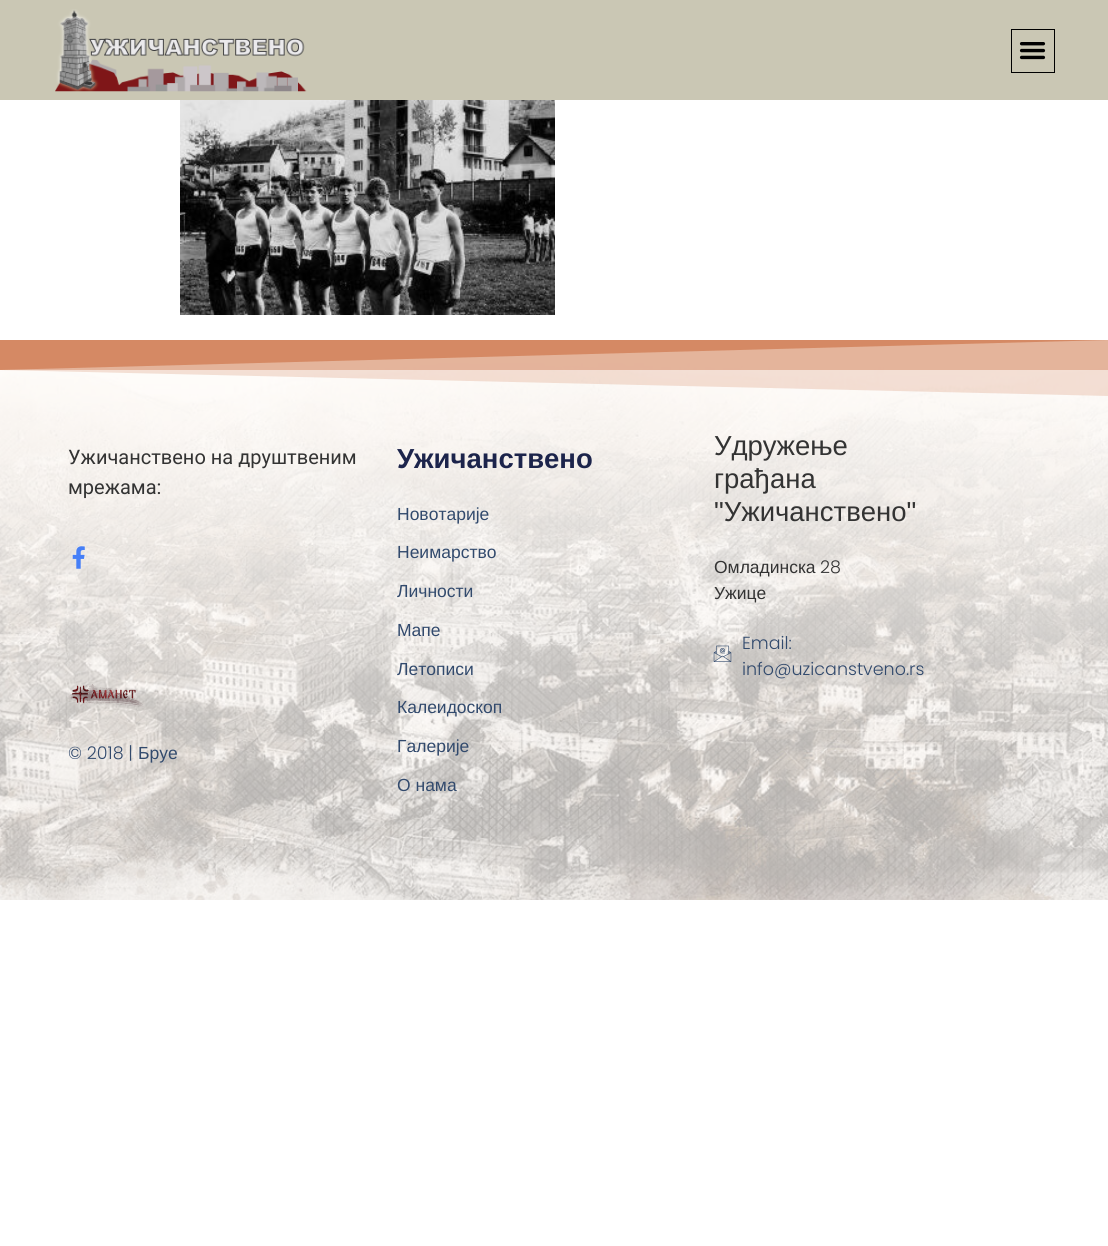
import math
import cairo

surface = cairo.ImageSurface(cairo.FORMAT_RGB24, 1108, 1246)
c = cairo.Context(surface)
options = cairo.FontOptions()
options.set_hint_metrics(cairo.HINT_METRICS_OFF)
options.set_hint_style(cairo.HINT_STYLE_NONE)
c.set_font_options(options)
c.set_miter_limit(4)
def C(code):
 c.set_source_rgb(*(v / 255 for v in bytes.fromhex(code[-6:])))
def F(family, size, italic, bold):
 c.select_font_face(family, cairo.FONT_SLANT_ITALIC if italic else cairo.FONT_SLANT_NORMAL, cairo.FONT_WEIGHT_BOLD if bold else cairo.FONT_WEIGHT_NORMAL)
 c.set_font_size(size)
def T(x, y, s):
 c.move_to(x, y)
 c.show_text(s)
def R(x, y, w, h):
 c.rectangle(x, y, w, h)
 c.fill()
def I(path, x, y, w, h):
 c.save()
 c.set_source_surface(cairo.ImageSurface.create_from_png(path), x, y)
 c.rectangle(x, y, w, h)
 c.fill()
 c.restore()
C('ffffff')
c.paint()
C('fffcf9')
R(260,341,848,22)
C('cac7b4')
R(0,0,1108,100)
I('1.png',55,9,252,83)
c.rectangle(1011.5,29.5,43,43)
C('000000')
c.set_line_width(1)
c.stroke()
I('2.png',1019,42,27,18)
I('3.png',180,100,375,215)
I('4.png',0,363,1108,537)
C('d68b65')
c.new_path()
c.move_to(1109,340)
c.line_to(-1,340)
c.line_to(-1,370)
c.close_path()
c.fill()
c.set_source_rgba(0.839,0.545,0.396,0.5)
R(0,340,1108,30)
c.set_source_rgba(0.839,0.545,0.396,0.25)
c.new_path()
c.move_to(-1,340)
c.line_to(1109,340)
c.line_to(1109,396)
c.line_to(-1,370)
c.close_path()
c.fill()
F('Roboto',20,0,0)
C('333333')
T(68,464,'Ужичанствено на друштвеним')
T(68,494,'мрежама:')
I('5.png',72,546,13,23)
I('6.png',68,684,76,23)
F('Poppins Light',17.5,0,0)
C('324a6d')
T(68,759,'© 2018 |')
F('Liberation Sans',17.5,0,0)
T(138,759,'Бруе')
F('Liberation Sans',27.5,0,1)
C('1c244b')
T(397,468,'Ужичанствено')
F('Liberation Sans',17.5,0,0)
C('324a6d')
T(397,520,'Новотарије')
T(397,558,'Неимарство')
T(397,597,'Личности')
T(397,636,'Мапе')
T(397,675,'Летописи')
T(397,713,'Калеидоскоп')
T(397,752,'Галерије')
T(397,791,'О нама')
F('Liberation Sans',27.5,0,0)
C('333333')
T(714,455,'Удружење')
T(714,488,'грађана')
T(714,521,'"Ужичанствено"')
F('Liberation Sans',17.5,0,0)
T(714,573,'Омладинска')
F('Poppins Light',17.5,0,0)
T(820,573,'28')
F('Liberation Sans',17.5,0,0)
T(714,599,'Ужице')
I('7.png',713,645,19,17)
F('Poppins Light',17.5,0,0)
C('324a6d')
T(742,649,'Email:')
T(742,675,'info@uzicanstveno.rs')
surface.write_to_png('o.png')
